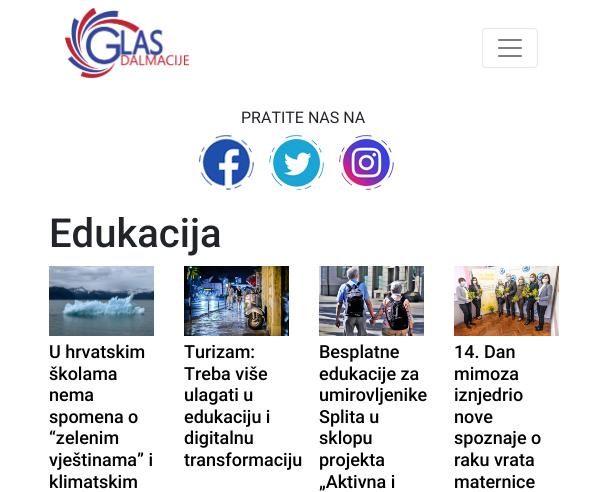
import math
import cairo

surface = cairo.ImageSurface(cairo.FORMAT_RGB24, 607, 492)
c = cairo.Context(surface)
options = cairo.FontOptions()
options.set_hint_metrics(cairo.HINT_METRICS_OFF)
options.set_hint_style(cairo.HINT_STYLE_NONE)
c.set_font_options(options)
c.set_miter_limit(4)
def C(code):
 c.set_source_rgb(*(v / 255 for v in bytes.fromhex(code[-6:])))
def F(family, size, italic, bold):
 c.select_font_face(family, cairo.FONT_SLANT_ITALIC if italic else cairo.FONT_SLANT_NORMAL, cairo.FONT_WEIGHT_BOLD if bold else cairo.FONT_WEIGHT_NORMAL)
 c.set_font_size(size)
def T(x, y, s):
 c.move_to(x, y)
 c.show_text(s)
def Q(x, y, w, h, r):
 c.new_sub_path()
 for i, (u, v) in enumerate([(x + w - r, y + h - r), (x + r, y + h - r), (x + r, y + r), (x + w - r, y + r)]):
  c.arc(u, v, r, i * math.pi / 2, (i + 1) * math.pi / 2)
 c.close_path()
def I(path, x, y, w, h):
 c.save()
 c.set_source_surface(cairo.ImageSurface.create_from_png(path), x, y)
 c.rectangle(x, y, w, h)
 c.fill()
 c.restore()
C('ffffff')
c.paint()
I('1.png',65,8,124,70)
Q(482.5,28.5,55,39,3.5)
C('e6e6e6')
c.set_line_width(1)
c.stroke()
I('2.png',498,39,24,18)
F('Roboto',16,0,0)
C('212529')
T(241,123,'PRATITE NAS NA')
I('3.png',199,135,55,55)
I('4.png',269,135,55,55)
I('5.png',339,135,55,55)
F('Roboto Medium',40,0,0)
T(49,247,'Edukacija')
I('6.png',49,266,105,70)
F('Roboto Medium',18,0,0)
C('000000')
T(49,358,'U hrvatskim')
T(49,380,'školama')
T(49,401,'nema')
T(49,423,'spomena o')
T(49,444,'“zelenim')
T(49,466,'vještinama” i')
T(49,488,'klimatskim')
I('7.png',184,266,105,70)
T(184,358,'Turizam:')
T(184,380,'Treba više')
T(184,401,'ulagati u')
T(184,423,'edukaciju i')
T(184,444,'digitalnu')
T(184,466,'transformaciju')
I('8.png',319,266,105,70)
T(319,358,'Besplatne')
T(319,380,'edukacije za')
T(319,401,'umirovljenike')
T(319,423,'Splita u')
T(319,444,'sklopu')
T(319,466,'projekta')
T(319,488,'„Aktivna i')
I('9.png',454,266,105,70)
T(454,358,'14. Dan')
T(454,380,'mimoza')
T(454,401,'iznjedrio')
T(454,423,'nove')
T(454,444,'spoznaje o')
T(454,466,'raku vrata')
T(454,488,'maternice')
surface.write_to_png('o.png')
